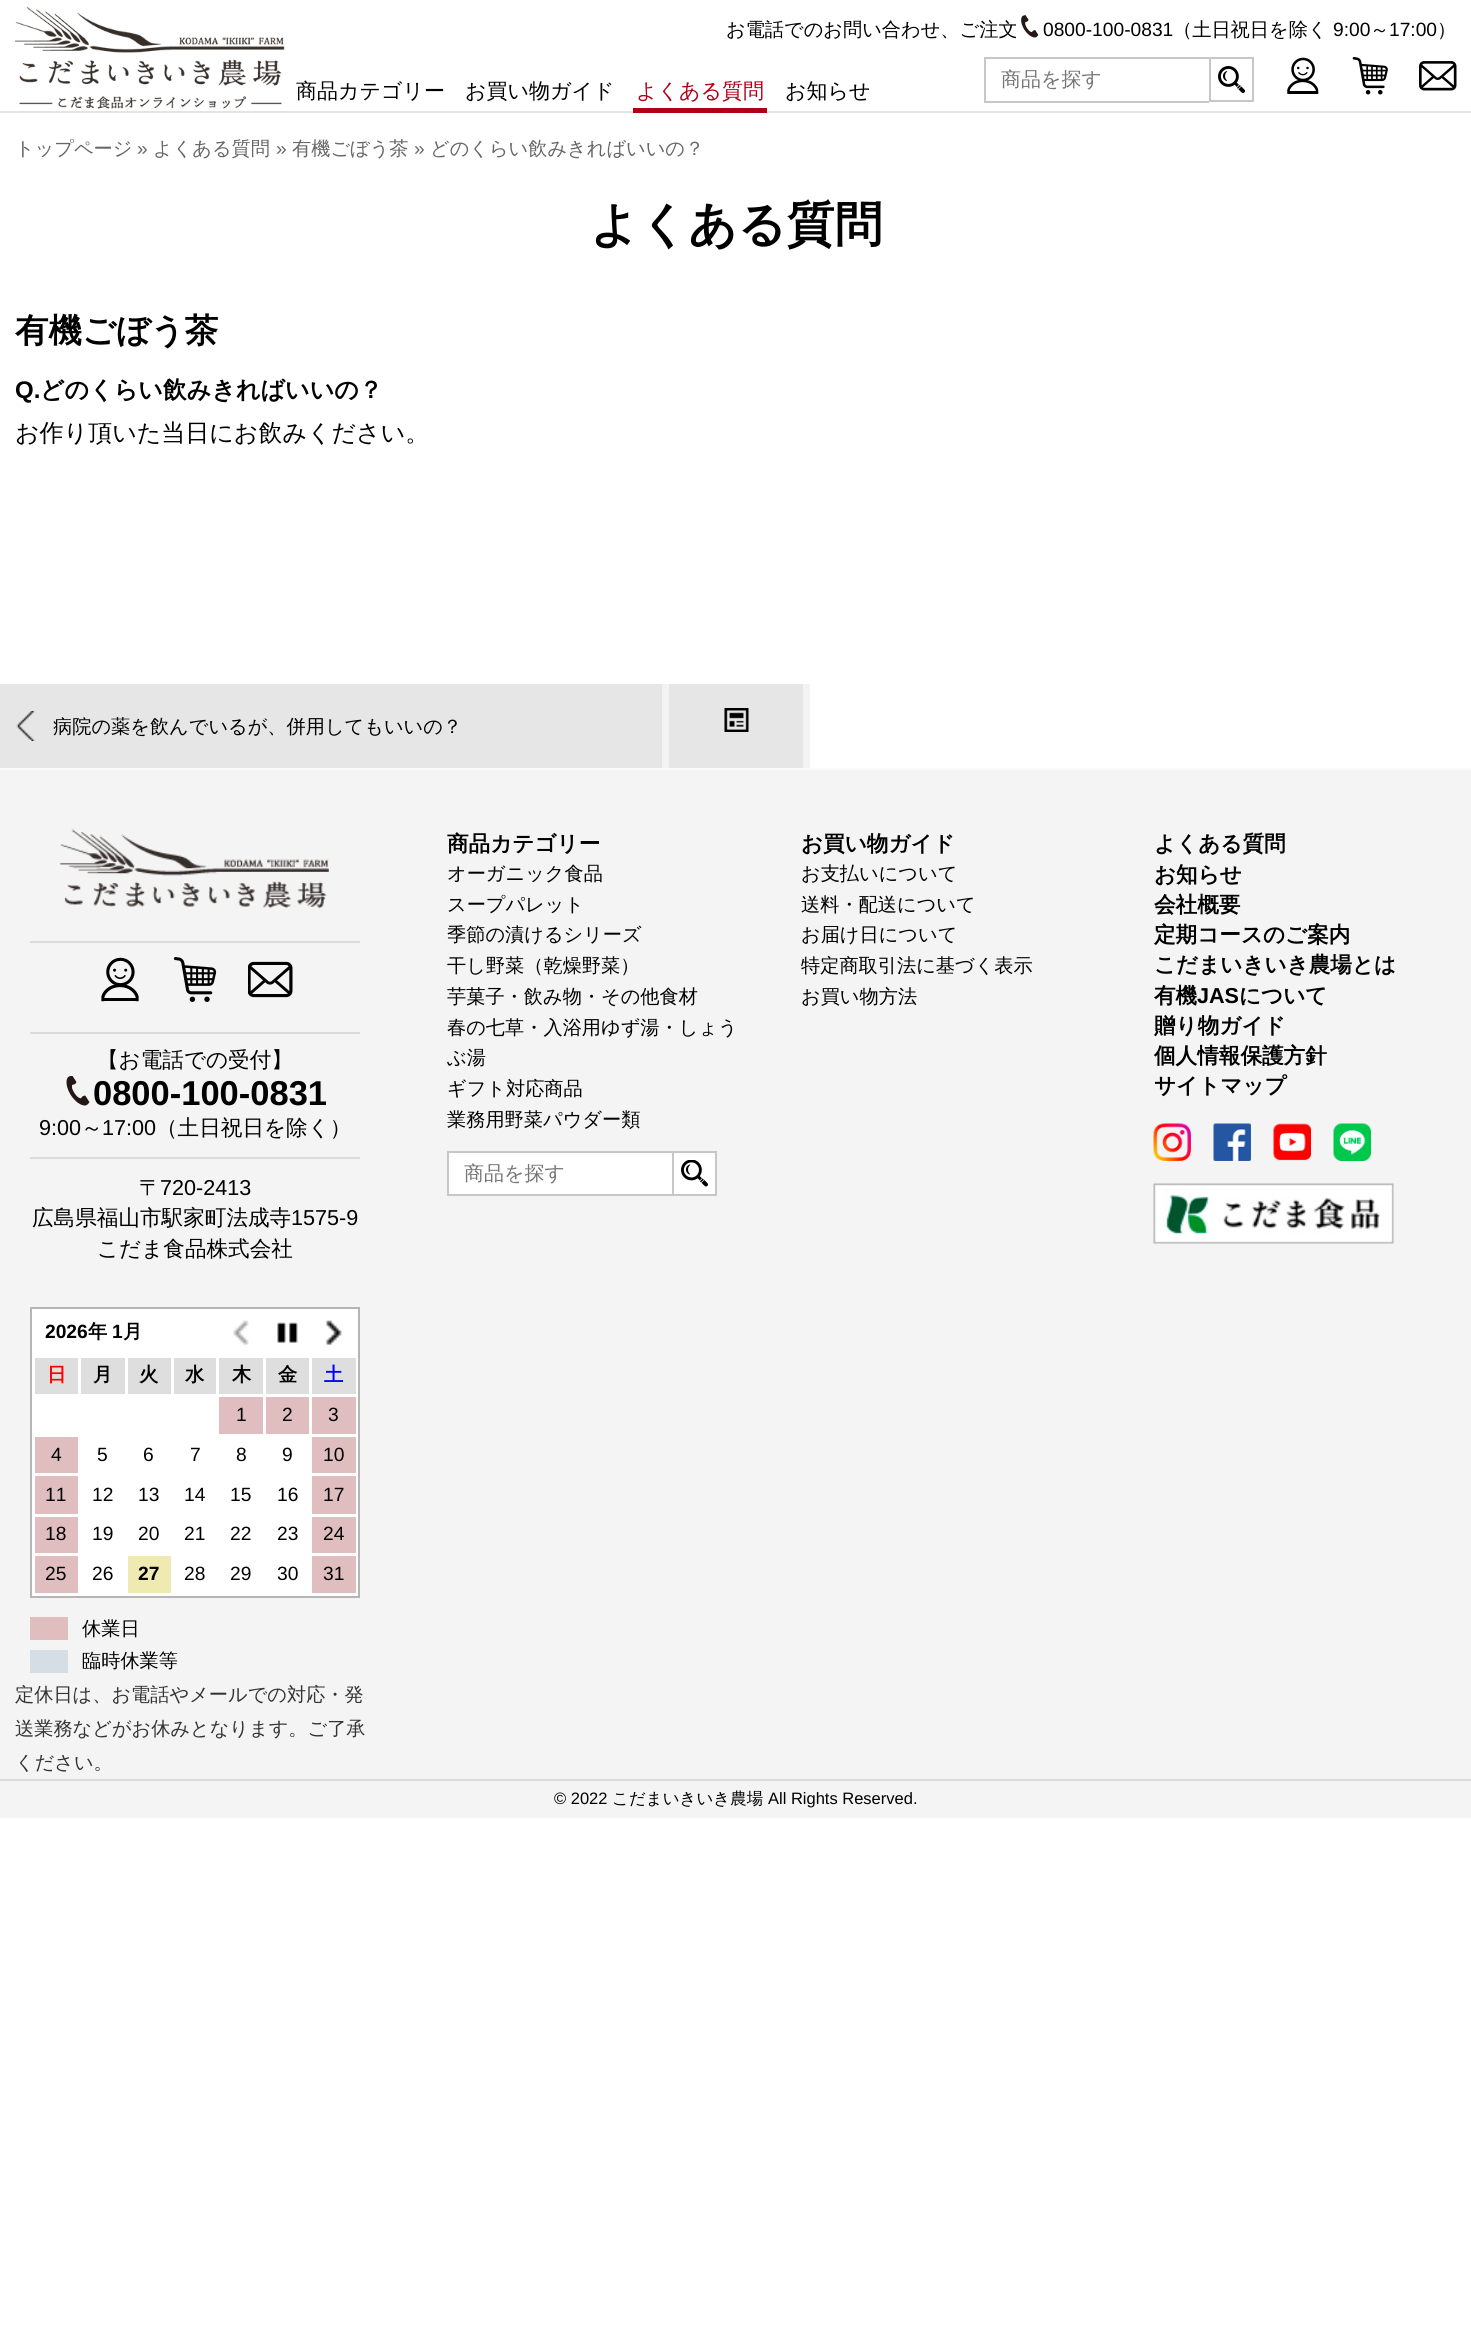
import math
import cairo

surface = cairo.ImageSurface(cairo.FORMAT_RGB24, 1471, 2340)
c = cairo.Context(surface)
options = cairo.FontOptions()
options.set_hint_metrics(cairo.HINT_METRICS_OFF)
options.set_hint_style(cairo.HINT_STYLE_NONE)
c.set_font_options(options)
c.set_miter_limit(4)
def C(code):
 c.set_source_rgb(*(v / 255 for v in bytes.fromhex(code[-6:])))
def F(family, size, italic, bold):
 c.select_font_face(family, cairo.FONT_SLANT_ITALIC if italic else cairo.FONT_SLANT_NORMAL, cairo.FONT_WEIGHT_BOLD if bold else cairo.FONT_WEIGHT_NORMAL)
 c.set_font_size(size)
def T(x, y, s):
 c.move_to(x, y)
 c.show_text(s)
def R(x, y, w, h):
 c.rectangle(x, y, w, h)
 c.fill()
def I(path, x, y, w, h):
 c.save()
 c.set_source_surface(cairo.ImageSurface.create_from_png(path), x, y)
 c.rectangle(x, y, w, h)
 c.fill()
 c.restore()
C('ffffff')
c.paint()
C('e4e4e4')
R(0,111,1471,2)
I('1.png',15,6,270,103)
F('WenQuanYi Zen Hei Medium',19.2,0,0)
C('000000')
T(726,36,'お電話でのお問い合わせ、ご注文')
I('2.png',1021,15,18,23)
F('Liberation Sans',19.2,0,0)
T(1043,36,'0800-100-0831')
F('WenQuanYi Zen Hei Medium',19.2,0,0)
T(1173,36,'（土日祝日を除く')
F('Liberation Sans',19.2,0,0)
T(1333,36,'9:00')
F('WenQuanYi Zen Hei Medium',19.2,0,0)
T(1370,36,'～')
F('Liberation Sans',19.2,0,0)
T(1389,36,'17:00')
F('WenQuanYi Zen Hei Medium',19.2,0,0)
T(1437,36,'）')
F('WenQuanYi Zen Hei Medium',21,0,0)
T(296,98,'商品カテゴリー')
T(465,98,'お買い物ガイド')
C('ae0016')
R(633,108,134,5)
T(636,98,'よくある質問')
C('000000')
T(785,98,'お知らせ')
C('c7c7c7')
R(984,57,225,2)
R(984,101,225,2)
R(984,57,2,45)
F('WenQuanYi Zen Hei Medium',20,0,0)
C('757575')
T(1001,86,'商品を探す')
c.rectangle(1210,58,43,43)
C('c7c7c7')
c.stroke()
I('3.png',1218,66,27,27)
I('4.png',1287,57,32,37)
I('5.png',1352,57,36,38)
I('6.png',1419,61,38,30)
F('WenQuanYi Zen Hei Medium',19.2,0,0)
C('666666')
T(15,155,'トップページ')
F('Liberation Sans',19.2,0,0)
T(137,155,'»')
F('WenQuanYi Zen Hei Medium',19.2,0,0)
T(153,155,'よくある質問')
F('Liberation Sans',19.2,0,0)
T(276,155,'»')
F('WenQuanYi Zen Hei Medium',19.2,0,0)
T(292,155,'有機ごぼう茶')
F('Liberation Sans',19.2,0,0)
T(414,155,'»')
F('WenQuanYi Zen Hei Medium',19.2,0,0)
T(430,155,'どのくらい飲みきればいいの？')
F('WenQuanYi Zen Hei',48,0,1)
C('000000')
T(590,241,'よくある質問')
F('WenQuanYi Zen Hei',33.5,0,1)
T(15,342,'有機ごぼう茶')
F('Liberation Sans',24,0,1)
T(15,398,'Q.')
F('WenQuanYi Zen Hei',24,0,1)
T(40,398,'どのくらい飲みきればいいの？')
F('WenQuanYi Zen Hei Medium',24,0,0)
T(15,441,'お作り頂いた当日にお飲みください。')
C('e6e6e6')
R(0,684,662,84)
I('7.png',16,711,19,30)
F('WenQuanYi Zen Hei Medium',19.2,0,0)
C('000000')
T(53,733,'病院の薬を飲んでいるが、併用してもいいの？')
C('e6e6e6')
R(669,684,134,84)
C('f3f3f3')
R(803,684,7,84)
R(662,684,7,84)
I('8.png',724,708,25,24)
C('f4f4f4')
R(0,770,1471,1048)
C('fafafa')
R(0,768,1471,2)
F('WenQuanYi Zen Hei',21.6,0,1)
C('000000')
T(447,851,'商品カテゴリー')
F('WenQuanYi Zen Hei Medium',19.2,0,0)
T(447,880,'オーガニック食品')
T(447,911,'スープパレット')
T(447,941,'季節の漬けるシリーズ')
T(447,972,'干し野菜（乾燥野菜）')
T(447,1003,'芋菓子・飲み物・その他食材')
T(447,1034,'春の七草・入浴用ゆず湯・しょう')
T(447,1064,'ぶ湯')
T(447,1095,'ギフト対応商品')
T(447,1126,'業務用野菜パウダー類')
C('ffffff')
R(449,1153,223,41)
C('c7c7c7')
R(447,1151,225,2)
R(447,1194,225,2)
R(447,1151,2,45)
F('WenQuanYi Zen Hei Medium',20,0,0)
C('757575')
T(464,1180,'商品を探す')
C('ffffff')
c.rectangle(673,1152,43,43)
c.fill_preserve()
C('c7c7c7')
c.stroke()
I('9.png',681,1160,27,27)
F('WenQuanYi Zen Hei',21.6,0,1)
C('000000')
T(801,851,'お買い物ガイド')
F('WenQuanYi Zen Hei Medium',19.2,0,0)
T(801,880,'お支払いについて')
T(801,911,'送料・配送について')
T(801,941,'お届け日について')
T(801,972,'特定商取引法に基づく表示')
T(801,1003,'お買い物方法')
F('WenQuanYi Zen Hei',21.6,0,1)
T(1154,851,'よくある質問')
T(1154,882,'お知らせ')
T(1154,912,'会社概要')
T(1154,942,'定期コースのご案内')
T(1154,972,'こだまいきいき農場とは')
T(1154,1003,'有機')
F('Liberation Sans',21.6,0,1)
T(1197,1003,'JAS')
F('WenQuanYi Zen Hei',21.6,0,1)
T(1239,1003,'について')
T(1154,1033,'贈り物ガイド')
T(1154,1063,'個人情報保護方針')
T(1154,1093,'サイトマップ')
I('10.png',1153,1123,38,38)
I('11.png',1213,1123,38,38)
I('12.png',1273,1123,38,38)
I('13.png',1333,1123,38,38)
I('14.png',1153,1183,241,61)
I('15.png',60,829,269,80)
C('dadada')
R(30,941,330,2)
I('16.png',101,957,38,45)
I('17.png',173,957,44,45)
I('18.png',248,961,45,37)
R(30,1032,330,2)
F('WenQuanYi Zen Hei Medium',21.6,0,0)
C('000000')
T(97,1067,'【お電話での受付】')
I('19.png',66,1076,24,30)
F('Liberation Sans',34.5,0,1)
T(93,1105,'0800-100-0831')
F('Liberation Sans',21.6,0,0)
T(39,1135,'9:00')
F('WenQuanYi Zen Hei Medium',21.6,0,0)
T(81,1135,'～')
F('Liberation Sans',21.6,0,0)
T(102,1135,'17:00')
F('WenQuanYi Zen Hei Medium',21.6,0,0)
T(156,1135,'（土日祝日を除く）')
C('dadada')
R(30,1157,330,2)
C('000000')
T(139,1195,'〒')
F('Liberation Sans',21.6,0,0)
T(160,1195,'720-2413')
F('WenQuanYi Zen Hei Medium',21.6,0,0)
T(32,1225,'広島県福山市駅家町法成寺')
F('Liberation Sans',21.6,0,0)
T(291,1225,'1575-9')
F('WenQuanYi Zen Hei Medium',21.6,0,0)
T(97,1256,'こだま食品株式会社')
C('ffffff')
c.rectangle(31,1308,328,289)
c.fill_preserve()
C('b5b5b6')
c.stroke()
F('Liberation Sans',19.2,0,1)
C('000000')
T(45,1338,'2026')
F('WenQuanYi Zen Hei',19.2,0,1)
T(88,1338,'年')
F('Liberation Sans',19.2,0,1)
T(112,1338,'1')
F('WenQuanYi Zen Hei',19.2,0,1)
T(123,1338,'月')
I('20.png',233,1320,16,25)
I('21.png',277,1322,21,21)
I('22.png',326,1320,16,26)
C('dedede')
R(35,1358,43,36)
C('ff0000')
T(47,1381,'日')
C('dedede')
R(81,1358,44,36)
C('000000')
T(93,1381,'月')
C('dedede')
R(128,1358,43,36)
C('000000')
T(139,1381,'火')
C('dedede')
R(174,1358,42,36)
C('000000')
T(185,1381,'水')
C('dedede')
R(219,1358,44,36)
C('000000')
T(232,1381,'木')
C('dedede')
R(266,1358,43,36)
C('000000')
T(278,1381,'金')
C('dedede')
R(312,1358,44,36)
C('0000ff')
T(324,1381,'土')
C('e0bebf')
R(219,1397,44,37)
F('Liberation Sans',19.2,0,0)
C('000000')
T(236,1421,'1')
C('e0bebf')
R(266,1397,43,37)
C('000000')
T(282,1421,'2')
C('e0bebf')
R(312,1397,44,37)
C('000000')
T(328,1421,'3')
C('e0bebf')
R(35,1437,43,36)
C('000000')
T(51,1461,'4')
T(97,1461,'5')
T(143,1461,'6')
T(190,1461,'7')
T(236,1461,'8')
T(282,1461,'9')
C('e0bebf')
R(312,1437,44,36)
C('000000')
T(323,1461,'10')
C('e0bebf')
R(35,1476,43,38)
C('000000')
T(45,1501,'11')
T(92,1501,'12')
T(138,1501,'13')
T(184,1501,'14')
T(230,1501,'15')
T(277,1501,'16')
C('e0bebf')
R(312,1476,44,38)
C('000000')
T(323,1501,'17')
C('e0bebf')
R(35,1517,43,36)
C('000000')
T(45,1540,'18')
T(92,1540,'19')
T(138,1540,'20')
T(184,1540,'21')
T(230,1540,'22')
T(277,1540,'23')
C('e0bebf')
R(312,1517,44,36)
C('000000')
T(323,1540,'24')
C('e0bebf')
R(35,1556,43,37)
C('000000')
T(45,1580,'25')
T(92,1580,'26')
C('efeab2')
R(128,1556,43,37)
F('Liberation Sans',19.2,0,1)
C('000000')
T(138,1580,'27')
F('Liberation Sans',19.2,0,0)
T(184,1580,'28')
T(230,1580,'29')
T(277,1580,'30')
C('e0bebf')
R(312,1556,44,37)
C('000000')
T(323,1580,'31')
C('e0bebf')
R(30,1617,38,23)
F('WenQuanYi Zen Hei Medium',19.2,0,0)
C('000000')
T(82,1635,'休業日')
C('d5dee5')
R(30,1650,38,23)
C('000000')
T(82,1667,'臨時休業等')
C('333333')
T(15,1701,'定休日は、お電話やメールでの対応・発')
T(15,1735,'送業務などがお休みとなります。ご了承')
T(15,1769,'ください。')
C('dadada')
R(0,1779,1471,2)
F('Liberation Sans',16.5,0,0)
C('000000')
T(554,1804,'© 2022')
F('WenQuanYi Zen Hei Medium',16.5,0,0)
T(612,1804,'こだまいきいき農場')
F('Liberation Sans',16.5,0,0)
T(768,1804,'All Rights Reserved.')
surface.write_to_png('o.png')
